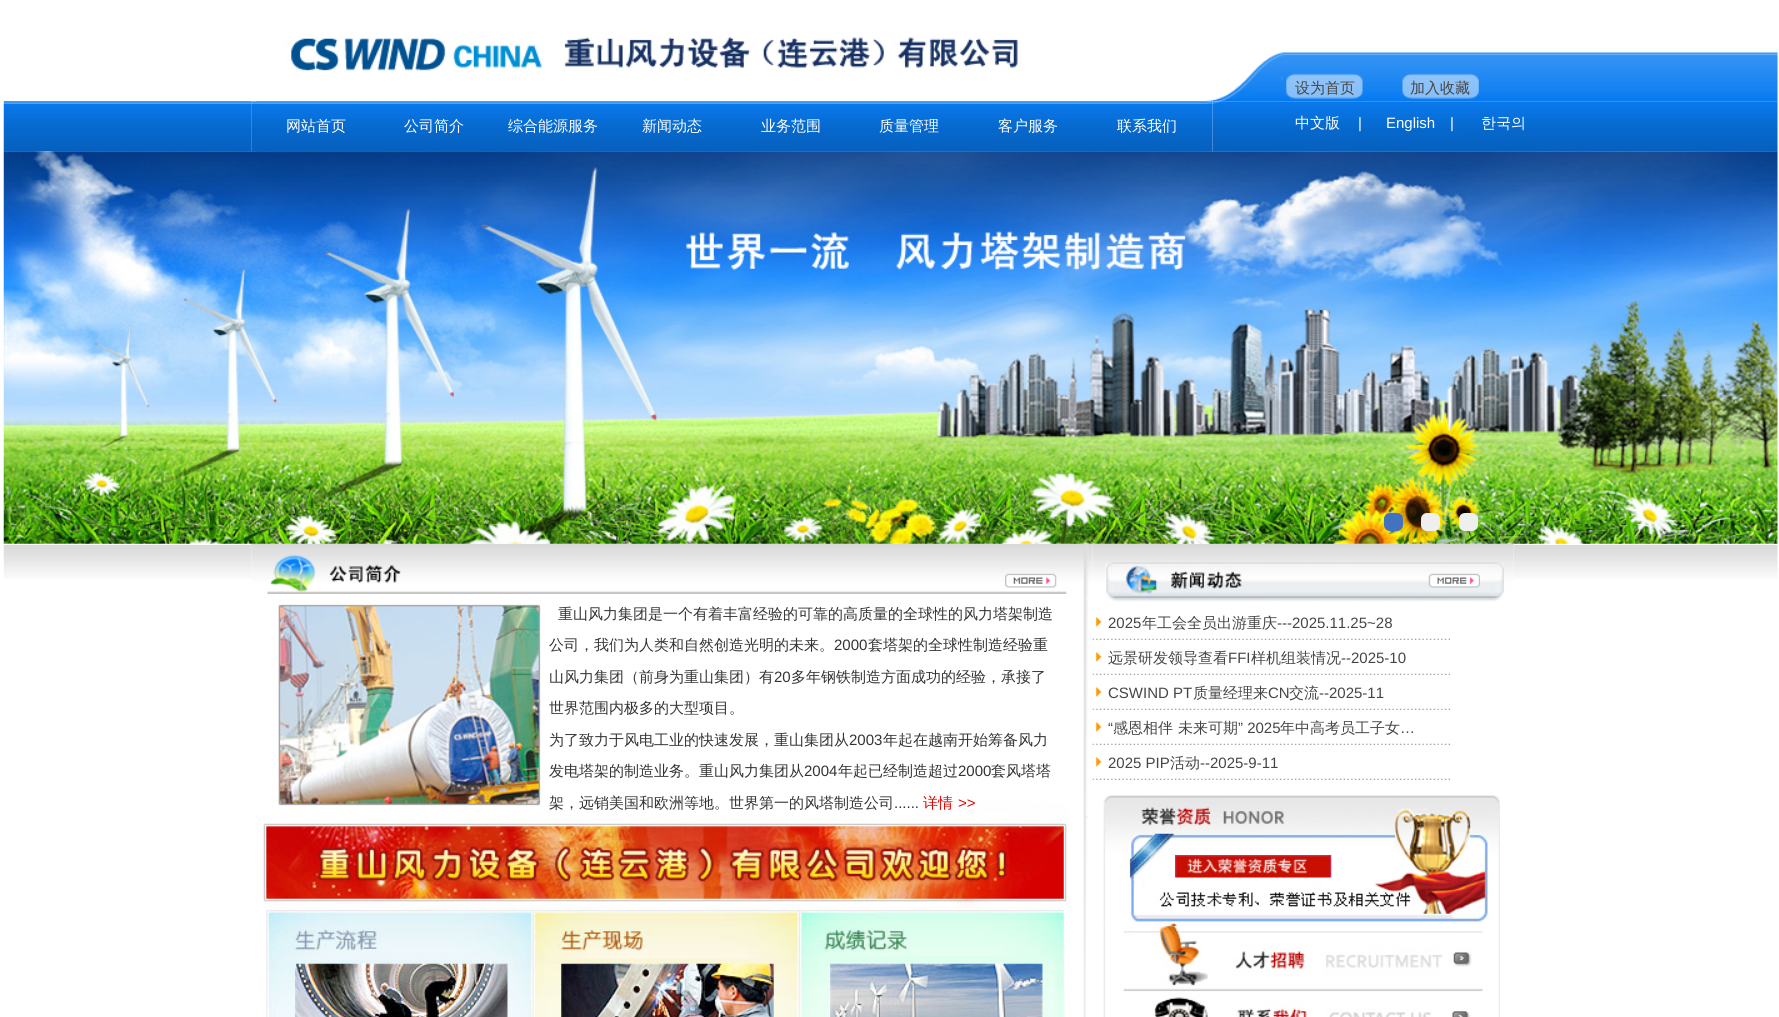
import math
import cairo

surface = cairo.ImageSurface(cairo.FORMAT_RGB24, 1779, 1017)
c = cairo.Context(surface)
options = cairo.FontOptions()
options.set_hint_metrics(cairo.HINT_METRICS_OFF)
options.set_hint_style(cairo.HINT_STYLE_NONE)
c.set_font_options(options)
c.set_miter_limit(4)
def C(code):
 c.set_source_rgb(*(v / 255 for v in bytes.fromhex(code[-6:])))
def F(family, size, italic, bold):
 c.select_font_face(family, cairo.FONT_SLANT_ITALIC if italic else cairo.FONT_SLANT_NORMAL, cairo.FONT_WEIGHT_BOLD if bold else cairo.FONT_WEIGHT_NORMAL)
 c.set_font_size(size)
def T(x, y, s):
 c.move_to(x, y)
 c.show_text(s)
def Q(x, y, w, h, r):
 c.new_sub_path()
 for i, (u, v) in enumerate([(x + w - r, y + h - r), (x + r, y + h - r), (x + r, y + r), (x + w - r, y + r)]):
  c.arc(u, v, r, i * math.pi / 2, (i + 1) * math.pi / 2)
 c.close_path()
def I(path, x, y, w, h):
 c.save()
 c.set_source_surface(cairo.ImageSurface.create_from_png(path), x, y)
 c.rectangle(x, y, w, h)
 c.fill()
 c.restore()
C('ffffff')
c.paint()
I('2.png',1212,52,566,50)
I('4.png',251,101,962,51)
I('5.png',256,101,951,51)
I('6.png',1212,101,566,51)
I('1.png',251,37,962,65)
F('WenQuanYi Zen Hei Medium',15,0,0)
C('454545')
T(1295,93,'设为首页')
T(1410,93,'加入收藏')
I('3.png',3,101,249,51)
C('ffffff')
T(286,131,'网站首页')
T(404,131,'公司简介')
T(508,131,'综合能源服务')
T(642,131,'新闻动态')
T(761,131,'业务范围')
T(879,131,'质量管理')
T(998,131,'客户服务')
T(1117,131,'联系我们')
T(1295,128,'中文版')
F('Liberation Sans',15,0,0)
T(1358,128,'|')
T(1386,128,'English')
T(1450,128,'|')
F('WenQuanYi Zen Hei Medium',15,0,0)
T(1481,128,'한국의')
I('10.png',251,543,842,56)
I('18.png',1092,543,422,56)
I('7.png',3,151,1775,393)
C('4372c1')
Q(1384,513,19,18,6)
c.fill()
C('efefef')
Q(1421,513,19,18,6)
c.fill()
Q(1459,513,19,18,6)
c.fill()
I('8.png',3,545,248,34)
I('9.png',1514,545,264,34)
I('11.png',1005,573,52,15)
I('12.png',278,599,810,220)
C('333333')
T(558,619,'重山风力集团是一个有着丰富经验的可靠的高质量的全球性的风力塔架制造')
T(549,650,'公司，我们为人类和自然创造光明的未来。')
F('Liberation Sans',15,0,0)
T(834,650,'2000')
F('WenQuanYi Zen Hei Medium',15,0,0)
T(868,650,'套塔架的全球性制造经验重')
T(549,682,'山风力集团（前身为重山集团）有')
F('Liberation Sans',15,0,0)
T(774,682,'20')
F('WenQuanYi Zen Hei Medium',15,0,0)
T(791,682,'多年钢铁制造方面成功的经验，承接了')
T(549,713,'世界范围内极多的大型项目。')
T(549,745,'为了致力于风电工业的快速发展，重山集团从')
F('Liberation Sans',15,0,0)
T(849,745,'2003')
F('WenQuanYi Zen Hei Medium',15,0,0)
T(883,745,'年起在越南开始筹备风力')
T(549,776,'发电塔架的制造业务。重山风力集团从')
F('Liberation Sans',15,0,0)
T(804,776,'2004')
F('WenQuanYi Zen Hei Medium',15,0,0)
T(838,776,'年起已经制造超过')
F('Liberation Sans',15,0,0)
T(958,776,'2000')
F('WenQuanYi Zen Hei Medium',15,0,0)
T(991,776,'套风塔塔')
T(549,808,'架，远销美国和欧洲等地。世界第一的风塔制造公司')
F('Liberation Sans',15,0,0)
T(894,808,'......')
F('WenQuanYi Zen Hei Medium',15,0,0)
C('e50500')
T(923,808,'详情')
F('Liberation Sans',15,0,0)
T(958,808,'>>')
I('13.png',263,819,824,86)
I('14.png',266,905,821,112)
I('15.png',295,963,213,54)
I('16.png',561,963,213,54)
I('17.png',830,963,213,54)
I('19.png',1428,573,52,15)
I('20.png',1110,598,390,4)
I('21.png',1092,638,358,2)
I('22.png',1096,617,6,10)
C('454545')
T(1108,628,'2025')
F('WenQuanYi Zen Hei Medium',15,0,0)
T(1142,628,'年工会全员出游重庆')
F('Liberation Sans',15,0,0)
T(1277,628,'---2025.11.25~28')
I('21.png',1092,673,358,2)
I('22.png',1096,652,6,10)
F('WenQuanYi Zen Hei Medium',15,0,0)
T(1108,663,'远景研发领导查看')
F('Liberation Sans',15,0,0)
T(1228,663,'FFI')
F('WenQuanYi Zen Hei Medium',15,0,0)
T(1251,663,'样机组装情况')
F('Liberation Sans',15,0,0)
T(1341,663,'--2025-10')
I('21.png',1092,708,358,2)
I('22.png',1096,687,6,10)
T(1108,698,'CSWIND PT')
F('WenQuanYi Zen Hei Medium',15,0,0)
T(1193,698,'质量经理来')
F('Liberation Sans',15,0,0)
T(1268,698,'CN')
F('WenQuanYi Zen Hei Medium',15,0,0)
T(1289,698,'交流')
F('Liberation Sans',15,0,0)
T(1319,698,'--2025-11')
I('21.png',1092,743,358,2)
I('22.png',1096,722,6,10)
T(1108,733,'“')
F('WenQuanYi Zen Hei Medium',15,0,0)
T(1113,733,'感恩相伴')
T(1178,733,'未来可期')
F('Liberation Sans',15,0,0)
T(1238,733,'” 2025')
F('WenQuanYi Zen Hei Medium',15,0,0)
T(1280,733,'年中高考员工子女')
F('Liberation Sans',15,0,0)
T(1400,733,'…')
I('21.png',1092,778,358,2)
I('22.png',1096,757,6,10)
T(1108,768,'2025 PIP')
F('WenQuanYi Zen Hei Medium',15,0,0)
T(1170,768,'活动')
F('Liberation Sans',15,0,0)
T(1200,768,'--2025-9-11')
I('23.png',1103,795,397,132)
I('24.png',1175,855,157,23)
I('25.png',1103,926,397,91)
I('26.png',1123,926,360,66)
I('27.png',1124,991,359,26)
surface.write_to_png('o.png')
